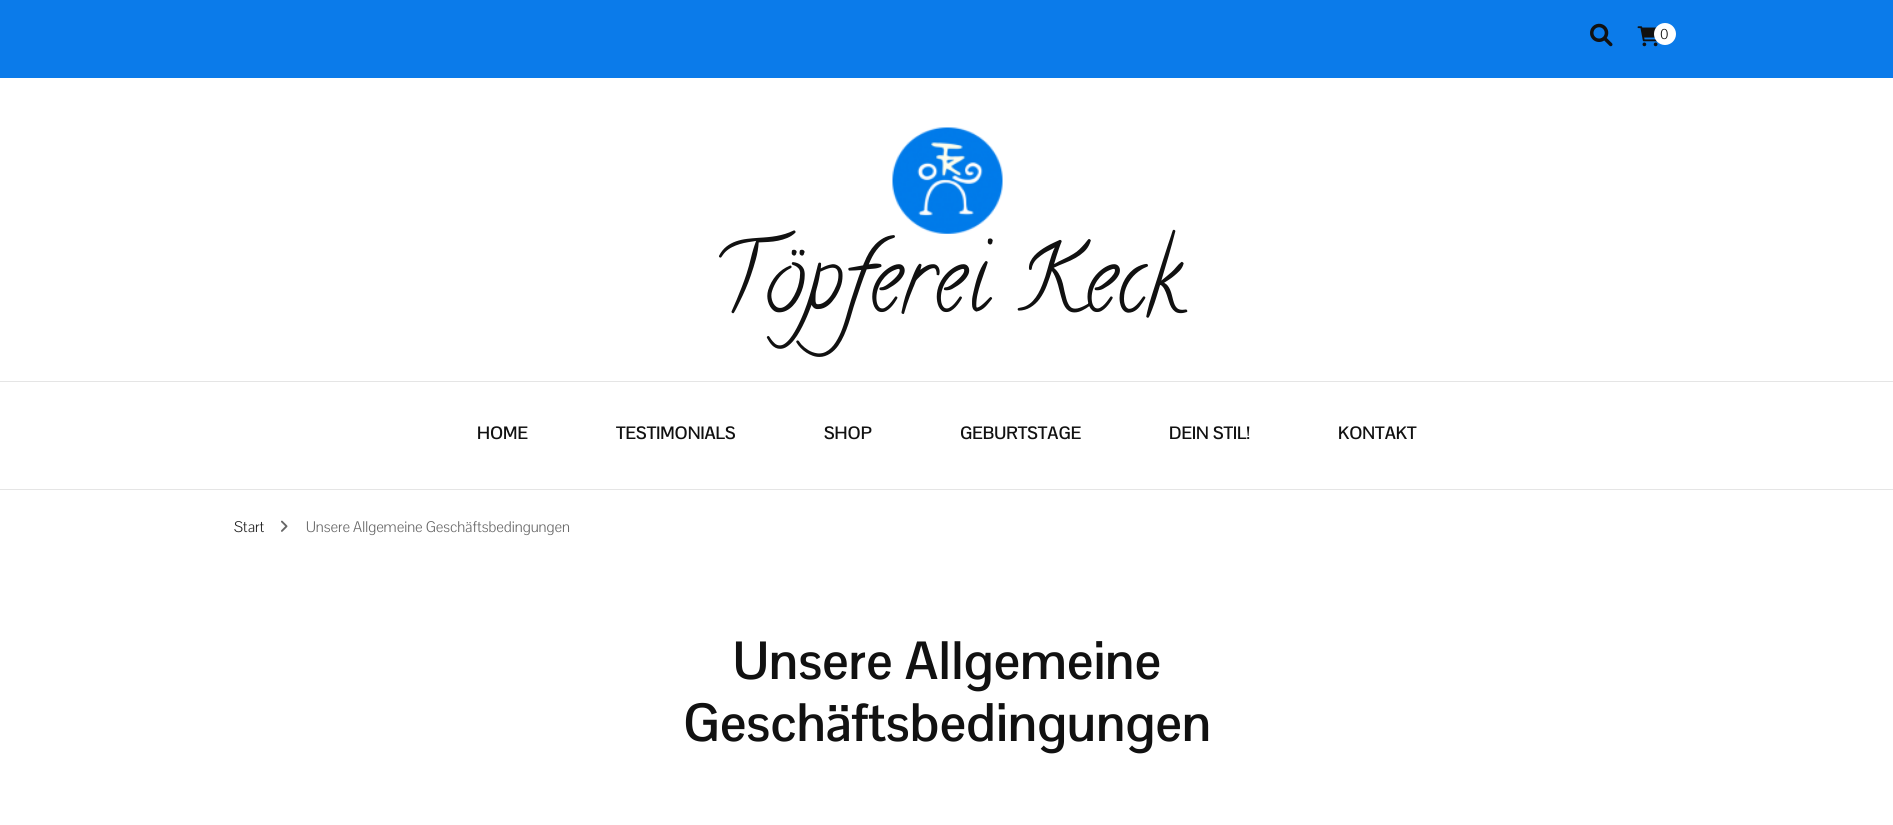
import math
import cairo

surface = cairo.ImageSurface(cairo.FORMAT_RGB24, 1893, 825)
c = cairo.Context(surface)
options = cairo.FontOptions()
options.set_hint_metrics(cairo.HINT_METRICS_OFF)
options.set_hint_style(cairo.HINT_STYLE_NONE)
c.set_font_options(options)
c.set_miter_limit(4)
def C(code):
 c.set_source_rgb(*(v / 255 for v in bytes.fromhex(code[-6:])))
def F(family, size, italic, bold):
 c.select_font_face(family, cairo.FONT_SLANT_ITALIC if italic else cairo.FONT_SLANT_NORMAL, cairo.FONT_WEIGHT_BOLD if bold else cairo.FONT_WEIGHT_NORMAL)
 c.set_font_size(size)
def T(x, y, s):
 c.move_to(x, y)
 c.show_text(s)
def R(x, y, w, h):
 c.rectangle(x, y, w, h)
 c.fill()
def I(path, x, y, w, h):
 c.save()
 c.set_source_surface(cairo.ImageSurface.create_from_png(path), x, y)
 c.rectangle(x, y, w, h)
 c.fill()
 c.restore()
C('ffffff')
c.paint()
C('0b7bea')
R(0,0,1893,78)
I('1.png',1590,23,23,24)
I('2.png',1637,26,21,21)
C('ffffff')
c.arc(1665,34,11,0,2 * math.pi)
c.fill()
F('Pontano Sans Light',14,0,0)
C('111111')
T(1660,39,'0')
I('3.png',892,127,111,107)
F('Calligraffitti',92.5,0,0)
T(712,308,'Töpferei Keck')
C('e5e5e5')
R(0,381,1893,1)
R(0,489,1893,1)
F('Pontano Sans',17.5,0,1)
C('111111')
T(477,439,'HOME')
T(616,439,'TESTIMONIALS')
T(824,439,'SHOP')
T(960,439,'GEBURTSTAGE')
T(1169,439,'DEIN STIL!')
T(1338,439,'KONTAKT')
F('Pontano Sans Light',15,0,0)
C('222222')
T(234,532,'Start')
I('4.png',281,520,7,12)
C('666666')
T(306,532,'Unsere Allgemeine Geschäftsbedingungen')
F('Pontano Sans',52.5,0,1)
C('111111')
T(733,679,'Unsere Allgemeine')
T(683,741,'Geschäftsbedingungen')
surface.write_to_png('o.png')
